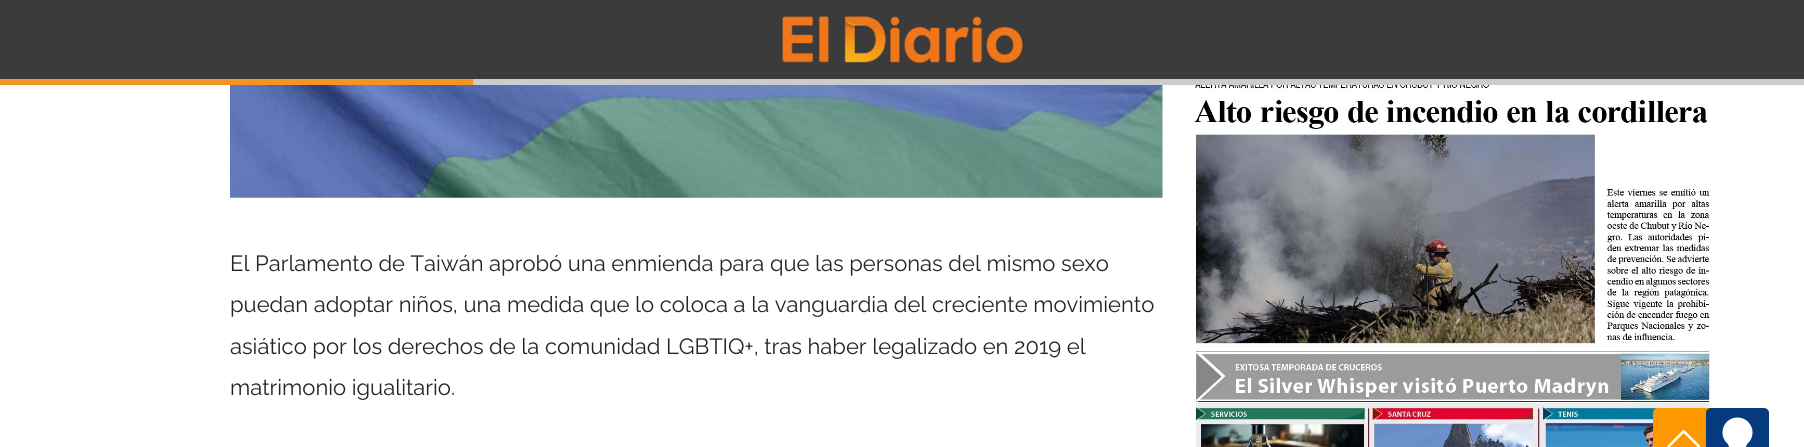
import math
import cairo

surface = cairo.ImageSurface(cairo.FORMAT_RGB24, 1804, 447)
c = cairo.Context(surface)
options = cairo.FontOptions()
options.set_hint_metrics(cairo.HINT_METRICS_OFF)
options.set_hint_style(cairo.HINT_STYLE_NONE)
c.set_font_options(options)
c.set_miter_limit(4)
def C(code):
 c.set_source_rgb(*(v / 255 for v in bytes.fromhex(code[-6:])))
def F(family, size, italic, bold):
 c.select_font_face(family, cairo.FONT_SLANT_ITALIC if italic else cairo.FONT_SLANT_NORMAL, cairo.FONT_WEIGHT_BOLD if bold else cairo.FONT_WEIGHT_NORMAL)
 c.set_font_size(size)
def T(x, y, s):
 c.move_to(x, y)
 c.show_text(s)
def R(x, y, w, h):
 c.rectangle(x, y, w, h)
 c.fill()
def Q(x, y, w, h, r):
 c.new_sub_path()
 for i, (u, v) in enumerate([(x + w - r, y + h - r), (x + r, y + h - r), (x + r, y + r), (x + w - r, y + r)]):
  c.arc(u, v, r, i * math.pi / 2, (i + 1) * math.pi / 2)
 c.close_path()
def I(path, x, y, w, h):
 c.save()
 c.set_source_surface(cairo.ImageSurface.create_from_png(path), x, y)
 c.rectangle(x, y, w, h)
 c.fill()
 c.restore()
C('ffffff')
c.paint()
C('3b3b3b')
R(0,0,1804,79)
I('1.png',782,16,241,48)
C('cccccc')
R(473,79,1331,6)
C('f39424')
R(0,79,473,6)
I('2.png',230,85,933,113)
F('Raleway',22,0,0)
C('212529')
T(230,271,'El Parlamento de Taiwán aprobó una enmienda para que las personas del mismo sexo')
T(230,312,'puedan adoptar niños, una medida que lo coloca a la vanguardia del creciente movimiento')
T(230,354,'asiático por los derechos de la comunidad LGBTIQ+, tras haber legalizado en 2019 el')
T(230,395,'matrimonio igualitario.')
I('3.png',1192,85,520,362)
C('ff9800')
Q(1653,408,62,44,5)
c.fill()
I('4.png',1667,430,33,17)
C('053a7e')
Q(1706,408,63,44,5)
c.fill()
I('5.png',1722,417,31,30)
surface.write_to_png('o.png')
